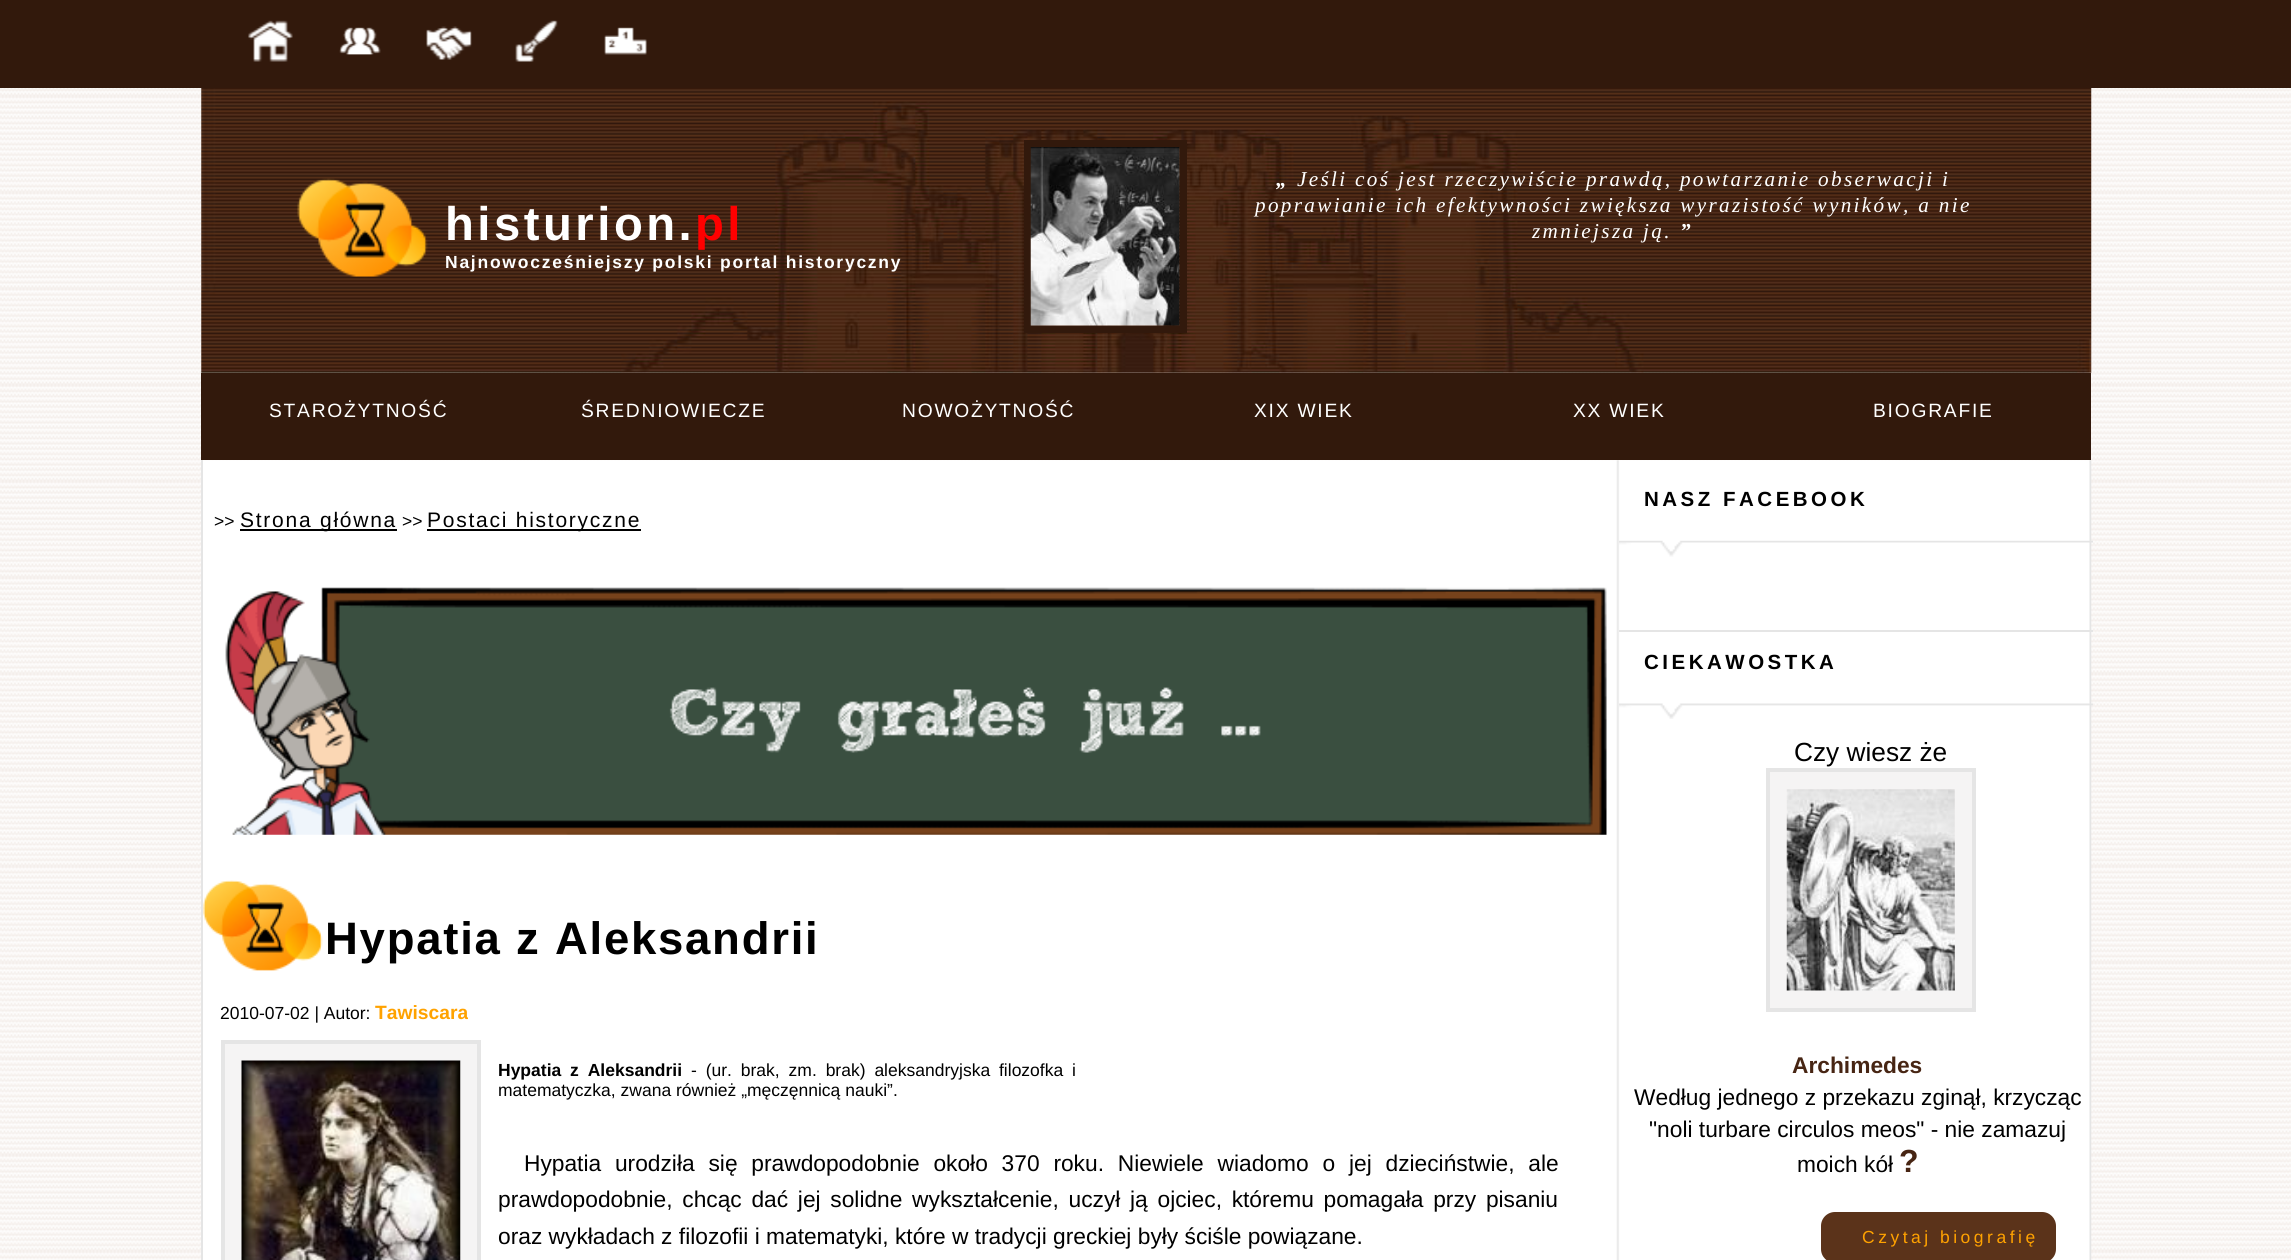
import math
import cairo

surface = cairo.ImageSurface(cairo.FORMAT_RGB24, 2291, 1260)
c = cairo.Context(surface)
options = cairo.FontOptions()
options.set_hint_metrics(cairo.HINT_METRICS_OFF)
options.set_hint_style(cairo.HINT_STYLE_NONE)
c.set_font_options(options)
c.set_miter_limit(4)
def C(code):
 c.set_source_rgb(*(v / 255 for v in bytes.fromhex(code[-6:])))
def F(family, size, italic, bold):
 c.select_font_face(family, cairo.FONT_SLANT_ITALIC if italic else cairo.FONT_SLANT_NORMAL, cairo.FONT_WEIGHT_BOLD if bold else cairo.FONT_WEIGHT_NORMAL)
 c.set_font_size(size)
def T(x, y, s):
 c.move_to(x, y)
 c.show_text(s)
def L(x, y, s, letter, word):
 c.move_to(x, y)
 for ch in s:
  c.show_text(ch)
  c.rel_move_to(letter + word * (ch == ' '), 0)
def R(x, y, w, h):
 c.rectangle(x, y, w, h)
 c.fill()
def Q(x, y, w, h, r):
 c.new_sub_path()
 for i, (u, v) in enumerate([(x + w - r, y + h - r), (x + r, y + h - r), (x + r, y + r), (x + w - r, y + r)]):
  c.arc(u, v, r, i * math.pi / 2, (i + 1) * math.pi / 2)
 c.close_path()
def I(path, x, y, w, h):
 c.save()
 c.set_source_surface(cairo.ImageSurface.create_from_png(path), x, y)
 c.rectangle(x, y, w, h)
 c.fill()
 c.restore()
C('ffffff')
c.paint()
I('1.png',0,88,2291,1172)
C('32190c')
R(0,0,2291,88)
I('2.png',248,20,45,42)
I('3.png',339,27,42,28)
I('4.png',426,26,46,34)
I('5.png',515,20,43,42)
I('6.png',604,27,43,28)
I('7.png',201,88,1891,285)
I('8.png',297,178,131,100)
F('Liberation Sans',47.25,0,1)
C('ffffff')
L(445,240,'histurion.',3.5,0)
C('ff0000')
L(695,240,'pl',3.5,0)
F('Liberation Sans',17.5,0,1)
C('ffffff')
L(445,268,'Najnowocześniejszy polski portal historyczny',1.75,0)
c.rectangle(1027.5,143.5,156,186)
C('32190c')
c.set_line_width(7)
c.stroke()
I('9.png',1030,147,150,179)
F('Liberation Serif',21.2,1,1)
C('ffffff')
L(1276,186,'„',2.33,0)
F('Liberation Serif',21.2,1,0)
L(1297,186,'Jeśli coś jest rzeczywiście prawdą, powtarzanie obserwacji i',2.33,0)
L(1255,212,'poprawianie ich efektywności zwiększa wyrazistość wyników, a nie',2.33,0)
L(1532,238,'zmniejsza ją.',2.33,0)
F('Liberation Serif',21.2,1,1)
L(1680,238,'”',2.33,0)
C('32190c')
R(201,373,1890,87)
F('Liberation Sans',19.25,0,0)
C('ffffff')
L(269,417,'STAROŻYTNOŚĆ',1.75,0)
L(581,417,'ŚREDNIOWIECZE',1.75,0)
L(902,417,'NOWOŻYTNOŚĆ',1.75,0)
L(1254,417,'XIX WIEK',1.75,0)
L(1573,417,'XX WIEK',1.75,0)
L(1873,417,'BIOGRAFIE',1.75,0)
I('10.png',203,460,1889,800)
C('e5e5e5')
R(201,460,2,800)
F('Liberation Sans',17.5,0,0)
C('000000')
T(214,527,'>>')
R(240,529,157,2)
F('Liberation Sans',21,0,0)
L(240,527,'Strona główna',1.75,0)
F('Liberation Sans',17.5,0,0)
T(402,527,'>>')
R(427,529,214,2)
F('Liberation Sans',21,0,0)
L(427,527,'Postaci historyczne',1.75,0)
I('11.png',225,587,1382,248)
I('12.png',203,880,120,91)
F('Liberation Sans',45.5,0,1)
L(325,954,'Hypatia z Aleksandrii',1.75,0)
F('Liberation Sans',17.5,0,0)
T(220,1019,'2010-07-02 | Autor:')
F('Liberation Sans',19.25,0,1)
C('ffa200')
T(375,1019,'Tawiscara')
C('f5f4f4')
c.rectangle(223,1042,256,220)
c.fill_preserve()
C('e5e5e5')
c.set_line_width(4)
c.stroke()
I('13.png',241,1060,220,200)
F('Liberation Sans',17.5,0,1)
C('000000')
L(498,1076,'Hypatia z Aleksandrii',0,4)
F('Liberation Sans',17.5,0,0)
L(691,1076,'- (ur. brak, zm. brak) aleksandryjska filozofka i',0,4)
T(498,1096,'matematyczka, zwana również „męczęnnicą nauki”.')
F('Liberation Sans',22.75,0,0)
L(524,1171,'Hypatia urodziła się prawdopodobnie około 370 roku. Niewiele wiadomo o jej dzieciństwie, ale',0,7.5)
L(498,1207,'prawdopodobnie, chcąc dać jej solidne wykształcenie, uczył ją ojciec, któremu pomagała przy pisaniu',0,3.4)
T(498,1244,'oraz wykładach z filozofii i matematyki, które w tradycji greckiej były ściśle powiązane.')
I('14.png',1619,540,474,17)
F('Liberation Sans',20.5,0,1)
L(1644,506,'NASZ FACEBOOK',3.5,0)
C('e5e5e5')
R(1619,630,474,2)
I('15.png',1619,703,474,16)
C('000000')
L(1644,669,'CIEKAWOSTKA',3.5,0)
F('Liberation Sans',26.25,0,0)
T(1794,761,'Czy wiesz że')
C('f5f4f4')
c.rectangle(1768,770,206,240)
c.fill_preserve()
C('e5e5e5')
c.stroke()
I('16.png',1786,789,169,202)
F('Liberation Sans',22.75,0,1)
C('472513')
T(1792,1073,'Archimedes')
F('Liberation Sans',22.75,0,0)
C('000000')
T(1634,1105,'Według jednego z przekazu zginął, krzycząc')
T(1649,1137,'"noli turbare circulos meos" - nie zamazuj')
T(1797,1172,'moich kół')
F('Liberation Sans',32,0,1)
C('472513')
T(1899,1172,'?')
C('5b331a')
Q(1819,1210,239,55,16)
c.fill_preserve()
C('ffffff')
c.stroke()
F('Liberation Sans',17.5,0,0)
C('ffa200')
L(1862,1243,'Czytaj biografię',3.5,0)
surface.write_to_png('o.png')
